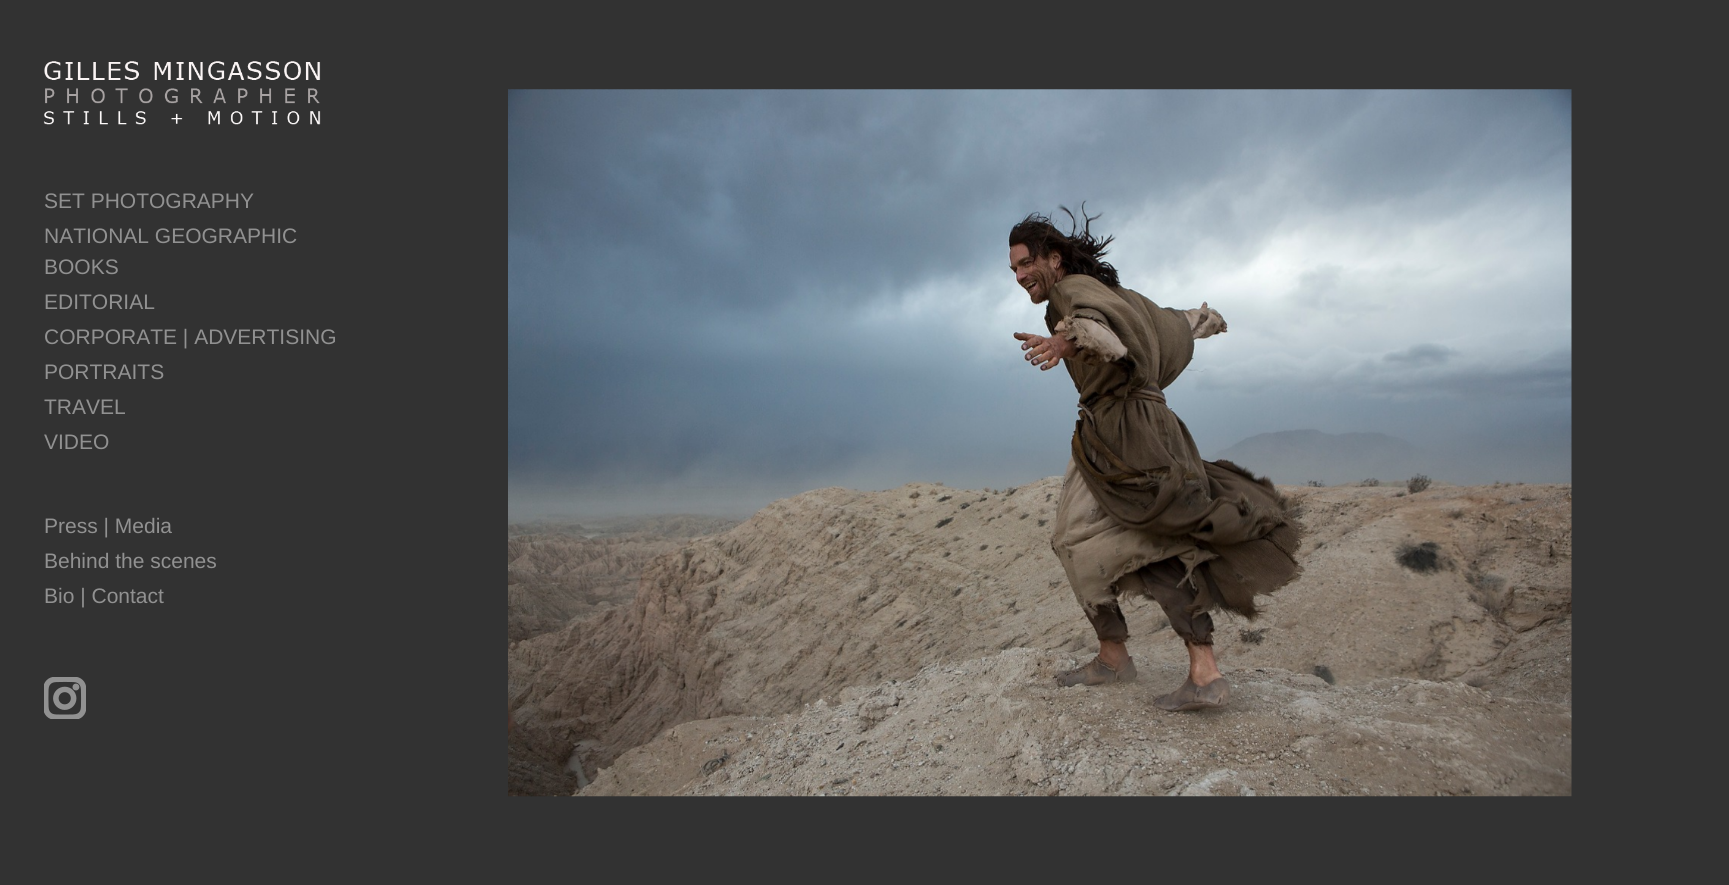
import math
import cairo

surface = cairo.ImageSurface(cairo.FORMAT_RGB24, 1729, 885)
c = cairo.Context(surface)
options = cairo.FontOptions()
options.set_hint_metrics(cairo.HINT_METRICS_OFF)
options.set_hint_style(cairo.HINT_STYLE_NONE)
c.set_font_options(options)
c.set_miter_limit(4)
def C(code):
 c.set_source_rgb(*(v / 255 for v in bytes.fromhex(code[-6:])))
def F(family, size, italic, bold):
 c.select_font_face(family, cairo.FONT_SLANT_ITALIC if italic else cairo.FONT_SLANT_NORMAL, cairo.FONT_WEIGHT_BOLD if bold else cairo.FONT_WEIGHT_NORMAL)
 c.set_font_size(size)
def T(x, y, s):
 c.move_to(x, y)
 c.show_text(s)
def I(path, x, y, w, h):
 c.save()
 c.set_source_surface(cairo.ImageSurface.create_from_png(path), x, y)
 c.rectangle(x, y, w, h)
 c.fill()
 c.restore()
C('323232')
c.paint()
I('1.png',43,61,278,64)
F('Liberation Sans',21,0,0)
C('919191')
T(44,208,'SET PHOTOGRAPHY')
T(44,243,'NATIONAL GEOGRAPHIC')
T(44,274,'BOOKS')
T(44,309,'EDITORIAL')
T(44,344,'CORPORATE | ADVERTISING')
T(44,379,'PORTRAITS')
T(44,414,'TRAVEL')
T(44,449,'VIDEO')
T(44,533,'Press | Media')
T(44,568,'Behind the scenes')
T(44,603,'Bio | Contact')
I('2.png',44,677,42,42)
I('3.png',508,89,1064,708)
surface.write_to_png('o.png')
